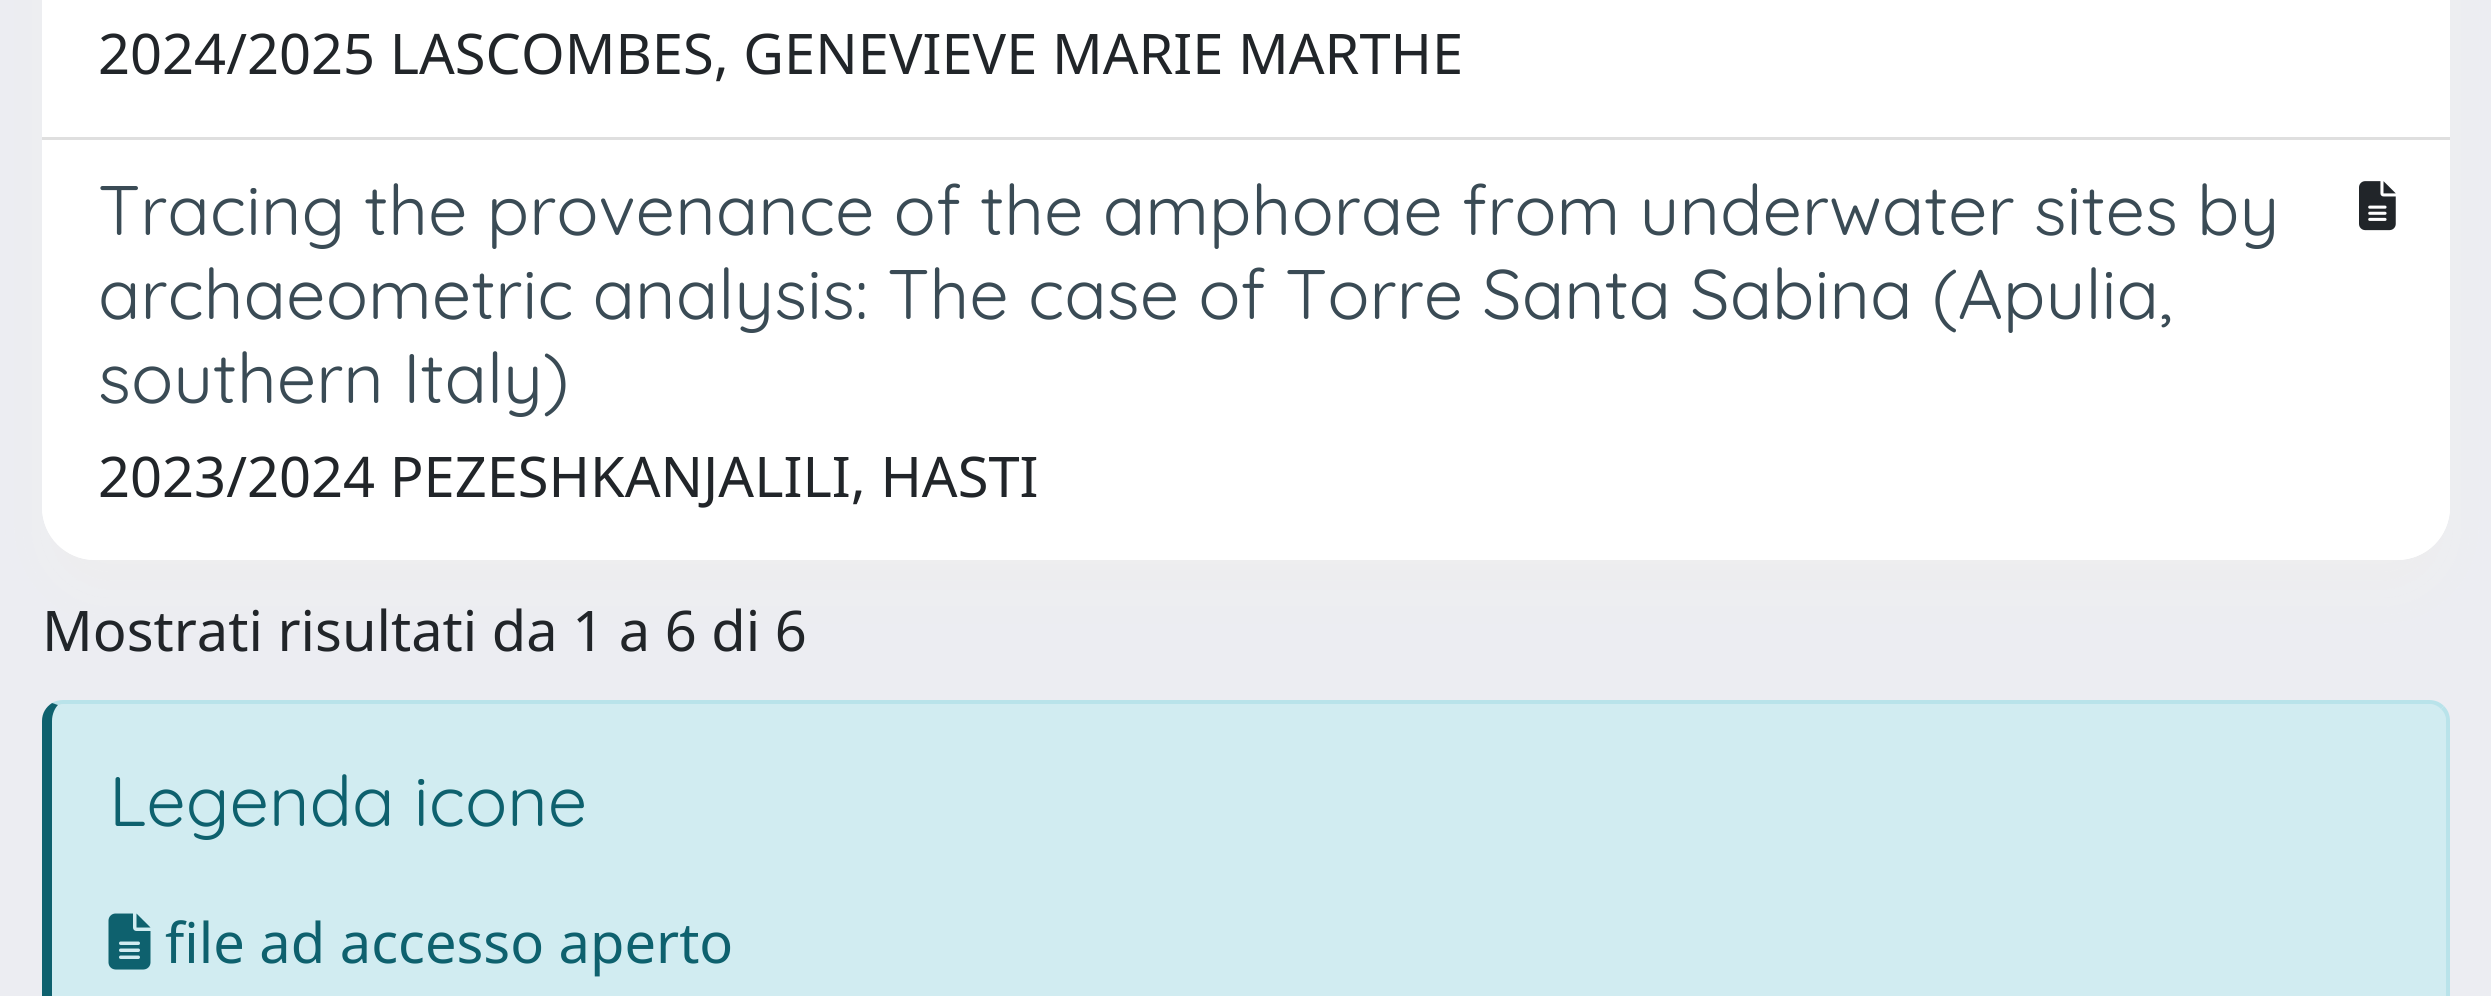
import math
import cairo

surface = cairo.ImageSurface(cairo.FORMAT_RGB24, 2491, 996)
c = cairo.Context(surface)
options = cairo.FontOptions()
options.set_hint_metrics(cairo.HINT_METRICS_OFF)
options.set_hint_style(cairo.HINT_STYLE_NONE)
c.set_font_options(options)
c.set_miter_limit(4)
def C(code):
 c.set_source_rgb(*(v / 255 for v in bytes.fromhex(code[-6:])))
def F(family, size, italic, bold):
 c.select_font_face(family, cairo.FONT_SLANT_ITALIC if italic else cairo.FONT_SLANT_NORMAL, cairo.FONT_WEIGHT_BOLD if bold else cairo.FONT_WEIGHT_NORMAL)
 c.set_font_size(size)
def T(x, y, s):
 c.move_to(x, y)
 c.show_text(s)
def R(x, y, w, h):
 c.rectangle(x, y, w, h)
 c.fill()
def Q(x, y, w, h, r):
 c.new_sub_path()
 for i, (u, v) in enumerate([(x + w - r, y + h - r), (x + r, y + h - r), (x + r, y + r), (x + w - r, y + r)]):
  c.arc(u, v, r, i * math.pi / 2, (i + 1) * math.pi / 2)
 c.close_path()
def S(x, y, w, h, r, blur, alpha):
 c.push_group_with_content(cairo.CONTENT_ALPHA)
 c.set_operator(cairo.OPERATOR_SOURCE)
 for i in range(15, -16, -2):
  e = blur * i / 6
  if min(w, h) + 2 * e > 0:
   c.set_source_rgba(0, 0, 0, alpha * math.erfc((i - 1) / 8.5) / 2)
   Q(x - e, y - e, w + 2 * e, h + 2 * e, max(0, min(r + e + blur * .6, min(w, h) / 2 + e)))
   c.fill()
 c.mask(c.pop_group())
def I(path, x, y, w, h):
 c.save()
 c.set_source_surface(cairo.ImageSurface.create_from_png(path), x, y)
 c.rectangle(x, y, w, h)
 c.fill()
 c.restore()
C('ecedf2')
c.paint()
C('eeeeee')
S(53,-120,2387,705,42,26,1)
C('ffffff')
Q(42,-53,2408,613,53)
c.fill()
C('dfdfdf')
R(42,137,2408,3)
F('Noto Sans',56,0,0)
C('212529')
T(98,74,'2024/2025 LASCOMBES, GENEVIEVE MARIE MARTHE')
C('ffffff')
c.new_path()
c.move_to(42,140)
c.line_to(2450,140)
c.line_to(2450,507)
c.curve_to(2450,536.5,2426.5,560,2397,560)
c.line_to(95,560)
c.curve_to(65.5,560,42,536.5,42,507)
c.close_path()
c.fill()
F('Quicksand',70,0,0)
C('3a4b55')
T(98,235,'Tracing the provenance of the amphorae from underwater sites by')
T(98,319,'archaeometric analysis: The case of Torre Santa Sabina (Apulia,')
T(98,403,'southern Italy)')
I('1.png',2359,181,37,50)
F('Noto Sans',56,0,0)
C('212529')
T(98,497,'2023/2024 PEZESHKANJALILI, HASTI')
T(42,651,'Mostrati risultati da 1 a 6 di 6')
C('d1ecf1')
c.new_path()
c.move_to(63,704)
c.line_to(2429,704)
c.curve_to(2439,704,2446,711,2446,721)
c.line_to(2446,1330)
c.curve_to(2446,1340,2439,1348,2429,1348)
c.line_to(63,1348)
c.curve_to(57,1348,52,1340,52,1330)
c.line_to(52,721)
c.curve_to(52,711,57,704,63,704)
c.close_path()
c.fill()
C('b9e3ea')
c.new_path()
c.move_to(63,700)
c.curve_to(59,700,55,701,52,703)
c.line_to(58,705)
c.curve_to(60,705,61,704,63,704)
c.line_to(2429,704)
c.curve_to(2434,704,2438,706,2441,709)
c.line_to(2444,706)
c.curve_to(2440,702,2435,700,2429,700)
c.close_path()
c.fill()
c.new_path()
c.move_to(2450,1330)
c.line_to(2450,721)
c.curve_to(2450,715,2448,710,2444,706)
c.line_to(2441,709)
c.curve_to(2444,712,2446,716,2446,721)
c.line_to(2446,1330)
c.curve_to(2446,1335,2444,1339,2441,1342)
c.line_to(2444,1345)
c.curve_to(2448,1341,2450,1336,2450,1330)
c.close_path()
c.fill()
C('0e616e')
c.new_path()
c.move_to(42,721)
c.line_to(42,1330)
c.curve_to(42,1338,46,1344,52,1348)
c.line_to(58,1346)
c.curve_to(54,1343,52,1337,52,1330)
c.line_to(52,721)
c.curve_to(52,714,55,708,58,705)
c.line_to(52,703)
c.curve_to(46,707,42,713,42,721)
c.close_path()
c.fill()
F('Quicksand',70,0,0)
T(109,826,'Legenda icone')
I('2.png',108,913,43,57)
F('Noto Sans',56,0,0)
T(165,963,'file ad accesso aperto')
surface.write_to_png('o.png')
